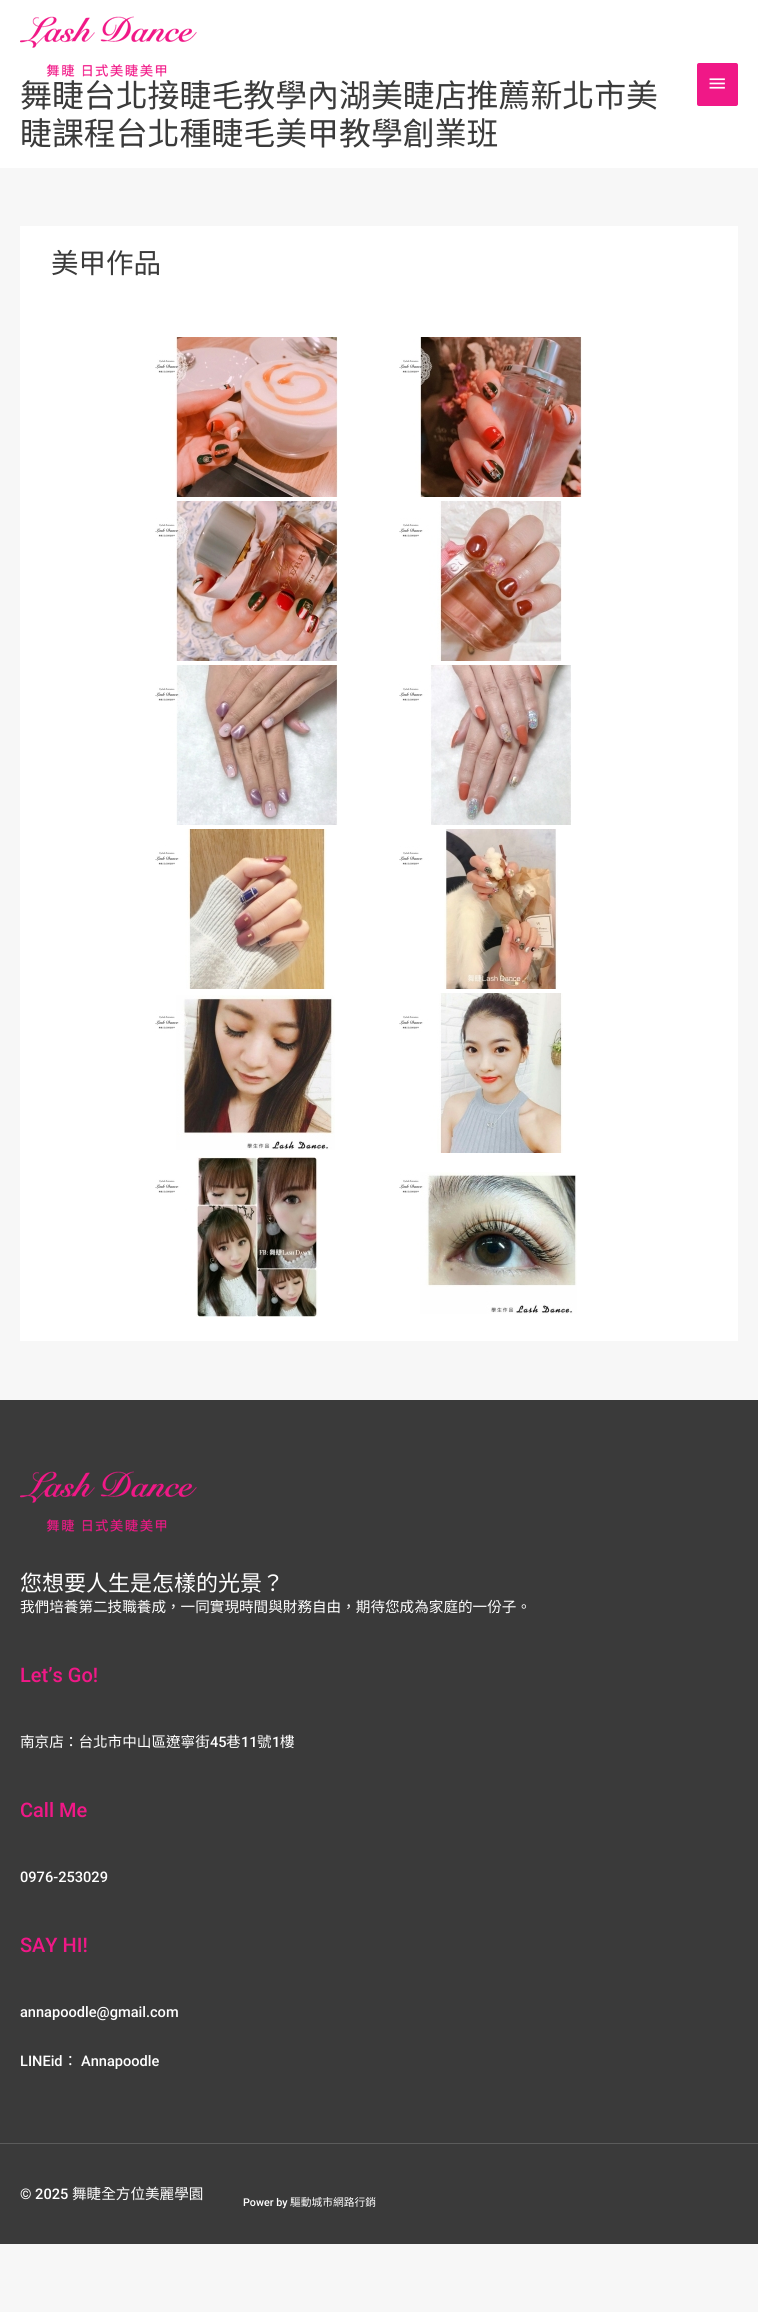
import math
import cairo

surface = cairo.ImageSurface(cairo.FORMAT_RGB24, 758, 2312)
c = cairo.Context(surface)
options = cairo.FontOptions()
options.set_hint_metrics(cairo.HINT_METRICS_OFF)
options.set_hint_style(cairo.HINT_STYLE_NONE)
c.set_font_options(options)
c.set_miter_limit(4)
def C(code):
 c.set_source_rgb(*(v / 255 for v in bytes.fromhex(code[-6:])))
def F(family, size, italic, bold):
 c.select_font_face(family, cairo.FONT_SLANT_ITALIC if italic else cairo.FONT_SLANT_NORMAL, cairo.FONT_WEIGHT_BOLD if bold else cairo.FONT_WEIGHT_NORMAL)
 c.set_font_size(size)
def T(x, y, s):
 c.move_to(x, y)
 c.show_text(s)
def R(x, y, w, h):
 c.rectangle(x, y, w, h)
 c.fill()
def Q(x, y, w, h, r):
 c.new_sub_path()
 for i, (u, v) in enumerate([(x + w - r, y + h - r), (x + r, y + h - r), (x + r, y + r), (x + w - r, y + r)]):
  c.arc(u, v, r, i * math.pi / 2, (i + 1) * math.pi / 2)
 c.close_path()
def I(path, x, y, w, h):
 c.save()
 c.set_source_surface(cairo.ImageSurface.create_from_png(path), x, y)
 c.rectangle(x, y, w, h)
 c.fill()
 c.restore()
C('f7f7f7')
c.paint()
C('ffffff')
R(0,0,758,168)
I('1.png',20,16,177,61)
F('Noto Sans CJK TC',31.9,0,0)
C('3a3a3a')
T(20,107,'舞睫台北接睫毛教學內湖美睫店推薦新北市美')
T(20,145,'睫課程台北種睫毛美甲教學創業班')
C('f01887')
Q(697,63,41,43,2)
c.fill()
I('2.png',709,78,16,11)
C('ffffff')
R(20,226,718,1115)
F('Noto Sans CJK TC',27.5,0,0)
C('3a3a3a')
T(51,273,'美甲作品')
I('3.png',155,337,183,160)
I('4.png',399,337,183,160)
I('5.png',155,501,183,160)
I('6.png',399,501,163,160)
I('7.png',155,665,183,160)
I('8.png',399,665,172,160)
I('9.png',155,829,172,160)
I('10.png',399,829,159,160)
I('11.png',155,995,180,155)
I('12.png',399,993,164,160)
I('13.png',155,1157,163,160)
I('14.png',399,1172,178,142)
R(0,1400,758,743)
I('15.png',20,1471,177,61)
F('Noto Sans CJK TC',22,0,0)
C('ffffff')
T(20,1591,'您想要人生是怎樣的光景？')
F('Noto Sans CJK TC',14.6,0,0)
T(20,1612,'我們培養第二技職養成，一同實現時間與財務自由，期待您成為家庭的一份子。')
F('Roboto Medium',20,0,0)
C('f01887')
T(20,1682,'Let’s Go!')
F('Noto Sans CJK TC',14.6,0,0)
C('ffffff')
T(20,1747,'南京店：台北市中山區遼寧街')
F('Roboto Medium',14.6,0,0)
T(210,1747,'45')
F('Noto Sans CJK TC',14.6,0,0)
T(226,1747,'巷')
F('Roboto Medium',14.6,0,0)
T(241,1747,'11')
F('Noto Sans CJK TC',14.6,0,0)
T(257,1747,'號')
F('Roboto Medium',14.6,0,0)
T(272,1747,'1')
F('Noto Sans CJK TC',14.6,0,0)
T(280,1747,'樓')
F('Roboto Medium',20,0,0)
C('f01887')
T(20,1817,'Call Me')
F('Roboto Medium',14.6,0,0)
C('ffffff')
T(20,1882,'0976-253029')
F('Roboto Medium',20,0,0)
C('f01887')
T(20,1952,'SAY HI!')
F('Roboto Medium',14.6,0,0)
C('ffffff')
T(20,2017,'annapoodle@gmail.com')
T(20,2066,'LINEid')
F('Noto Sans CJK TC',14.6,0,0)
T(63,2066,'：')
F('Roboto Medium',14.6,0,0)
T(81,2066,'Annapoodle')
C('5b5b5b')
R(0,2143,758,1)
C('3a3a3a')
R(0,2144,758,100)
C('ffffff')
T(20,2199,'© 2025')
F('Noto Sans CJK TC',14.6,0,0)
T(72,2199,'舞睫全方位美麗學園')
F('Roboto Medium',10.75,0,0)
T(243,2206,'Power by')
F('Noto Sans CJK TC',10.75,0,0)
T(290,2206,'驅動城市網路行銷')
surface.write_to_png('o.png')
